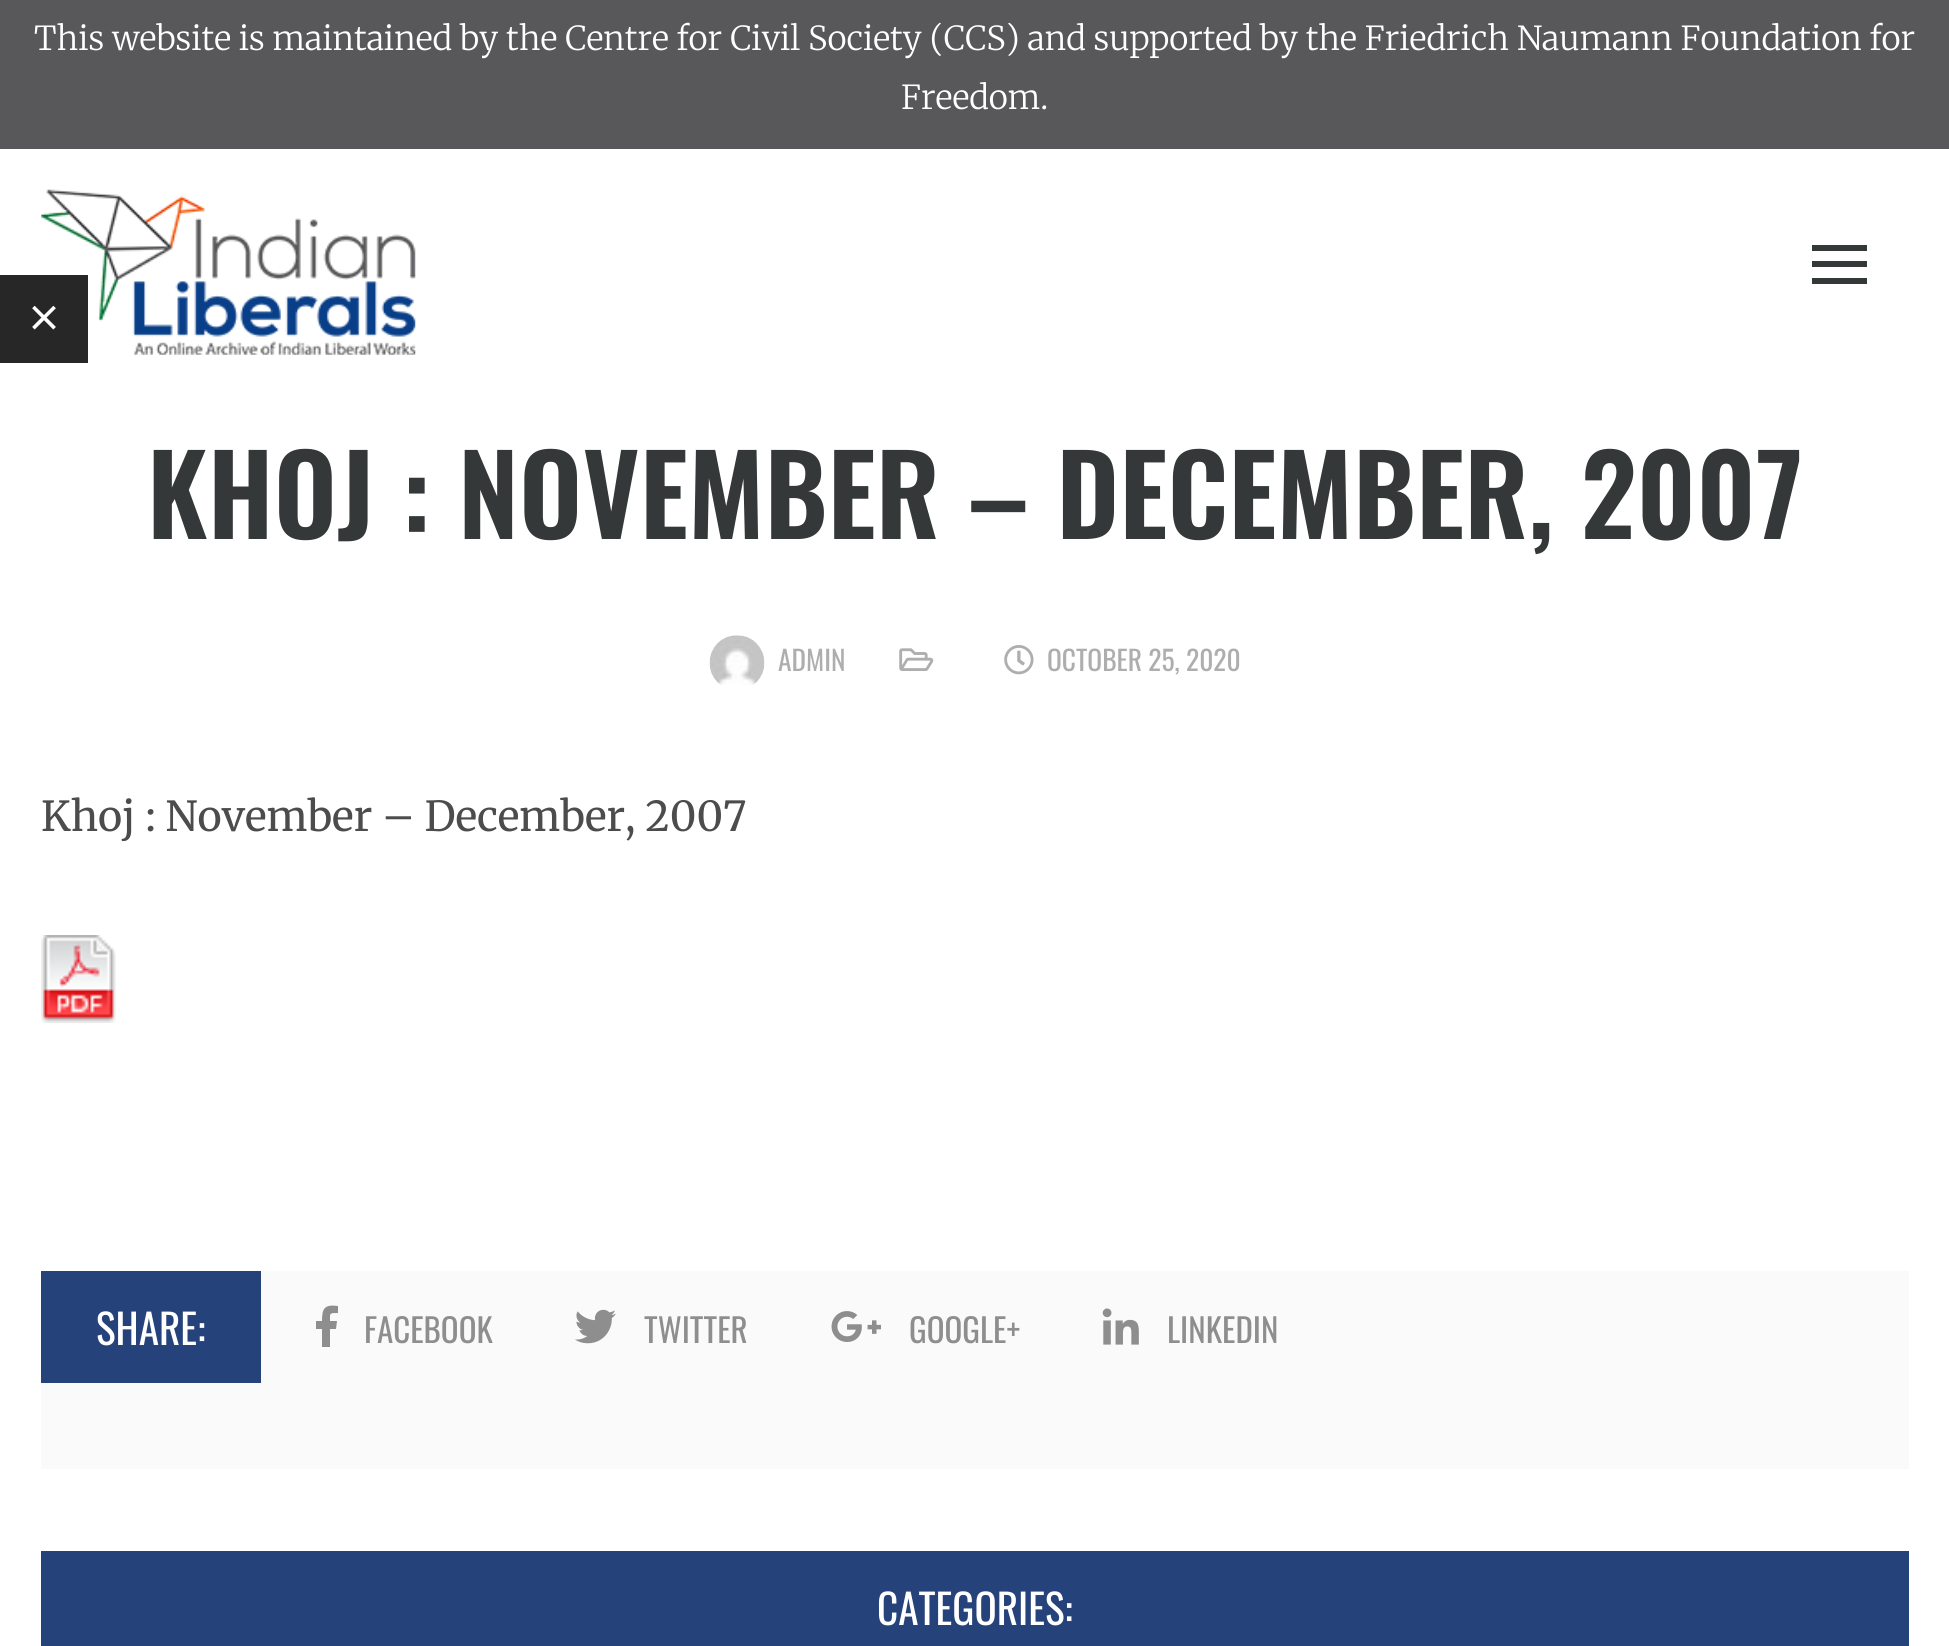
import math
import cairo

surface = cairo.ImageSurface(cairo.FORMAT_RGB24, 1949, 1646)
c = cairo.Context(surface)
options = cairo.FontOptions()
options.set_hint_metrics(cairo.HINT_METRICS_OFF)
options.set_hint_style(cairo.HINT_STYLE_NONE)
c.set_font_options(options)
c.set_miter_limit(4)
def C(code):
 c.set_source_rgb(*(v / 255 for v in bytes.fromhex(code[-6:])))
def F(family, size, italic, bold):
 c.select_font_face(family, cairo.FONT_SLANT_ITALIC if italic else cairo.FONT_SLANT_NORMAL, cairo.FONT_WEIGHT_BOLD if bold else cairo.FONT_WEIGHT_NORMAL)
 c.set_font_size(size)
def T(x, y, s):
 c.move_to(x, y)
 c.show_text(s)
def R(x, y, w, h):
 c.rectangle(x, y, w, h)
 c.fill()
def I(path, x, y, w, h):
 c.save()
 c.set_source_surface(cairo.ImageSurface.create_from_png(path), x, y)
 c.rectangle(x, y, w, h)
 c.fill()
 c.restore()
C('58585a')
c.paint()
F('Merriweather Light',33,0,0)
C('ffffff')
T(34,50,'This website is maintained by the Centre for Civil Society (CCS) and supported by the Friedrich Naumann Foundation for')
T(901,109,'Freedom.')
R(0,149,1949,1497)
I('1.png',41,189,375,166)
C('343838')
R(1812,245,55,6)
R(1812,261,55,6)
R(1812,278,55,6)
C('272727')
R(0,275,88,88)
F('Oswald ExtraLight',90,0,0)
C('ffffff')
T(29,355,'×')
F('Merriweather',41.25,0,0)
C('4c4c4c')
T(41,831,'Khoj : November – December, 2007')
I('2.png',41,935,75,88)
C('fafafa')
R(41,1271,1868,198)
C('26427a')
R(41,1271,220,112)
F('Oswald',41.25,0,0)
C('ffffff')
T(96,1345,'SHARE:')
C('8e8e8e')
c.new_path()
c.move_to(322,1347)
c.line_to(322,1329)
c.line_to(316,1329)
c.line_to(316,1321)
c.line_to(322,1321)
c.curve_to(322,1309,324,1304,338,1306)
c.line_to(338,1313)
c.curve_to(329,1313,330,1313,330,1321)
c.line_to(337,1321)
c.line_to(336,1329)
c.line_to(330,1329)
c.line_to(330,1347)
c.close_path()
c.fill()
F('Oswald',33,0,0)
T(364,1343,'FACEBOOK')
I('3.png',575,1309,41,35)
T(644,1343,'TWITTER')
I('4.png',831,1311,50,31)
T(909,1343,'GOOGLE+')
I('5.png',1102,1308,37,37)
T(1167,1343,'LINKEDIN')
C('26427a')
R(41,1551,1868,95)
F('Oswald',41.25,0,0)
C('ffffff')
T(877,1625,'CATEGORIES:')
F('Oswald SemiBold',110,0,0)
C('343838')
T(147,539,'KHOJ : NOVEMBER – DECEMBER, 2007')
I('6.png',709,635,56,50)
F('Oswald',27.5,0,0)
C('aeaeae')
T(778,671,'ADMIN')
I('7.png',899,648,35,23)
I('8.png',1004,645,30,30)
T(1047,671,'OCTOBER 25, 2020')
surface.write_to_png('o.png')
